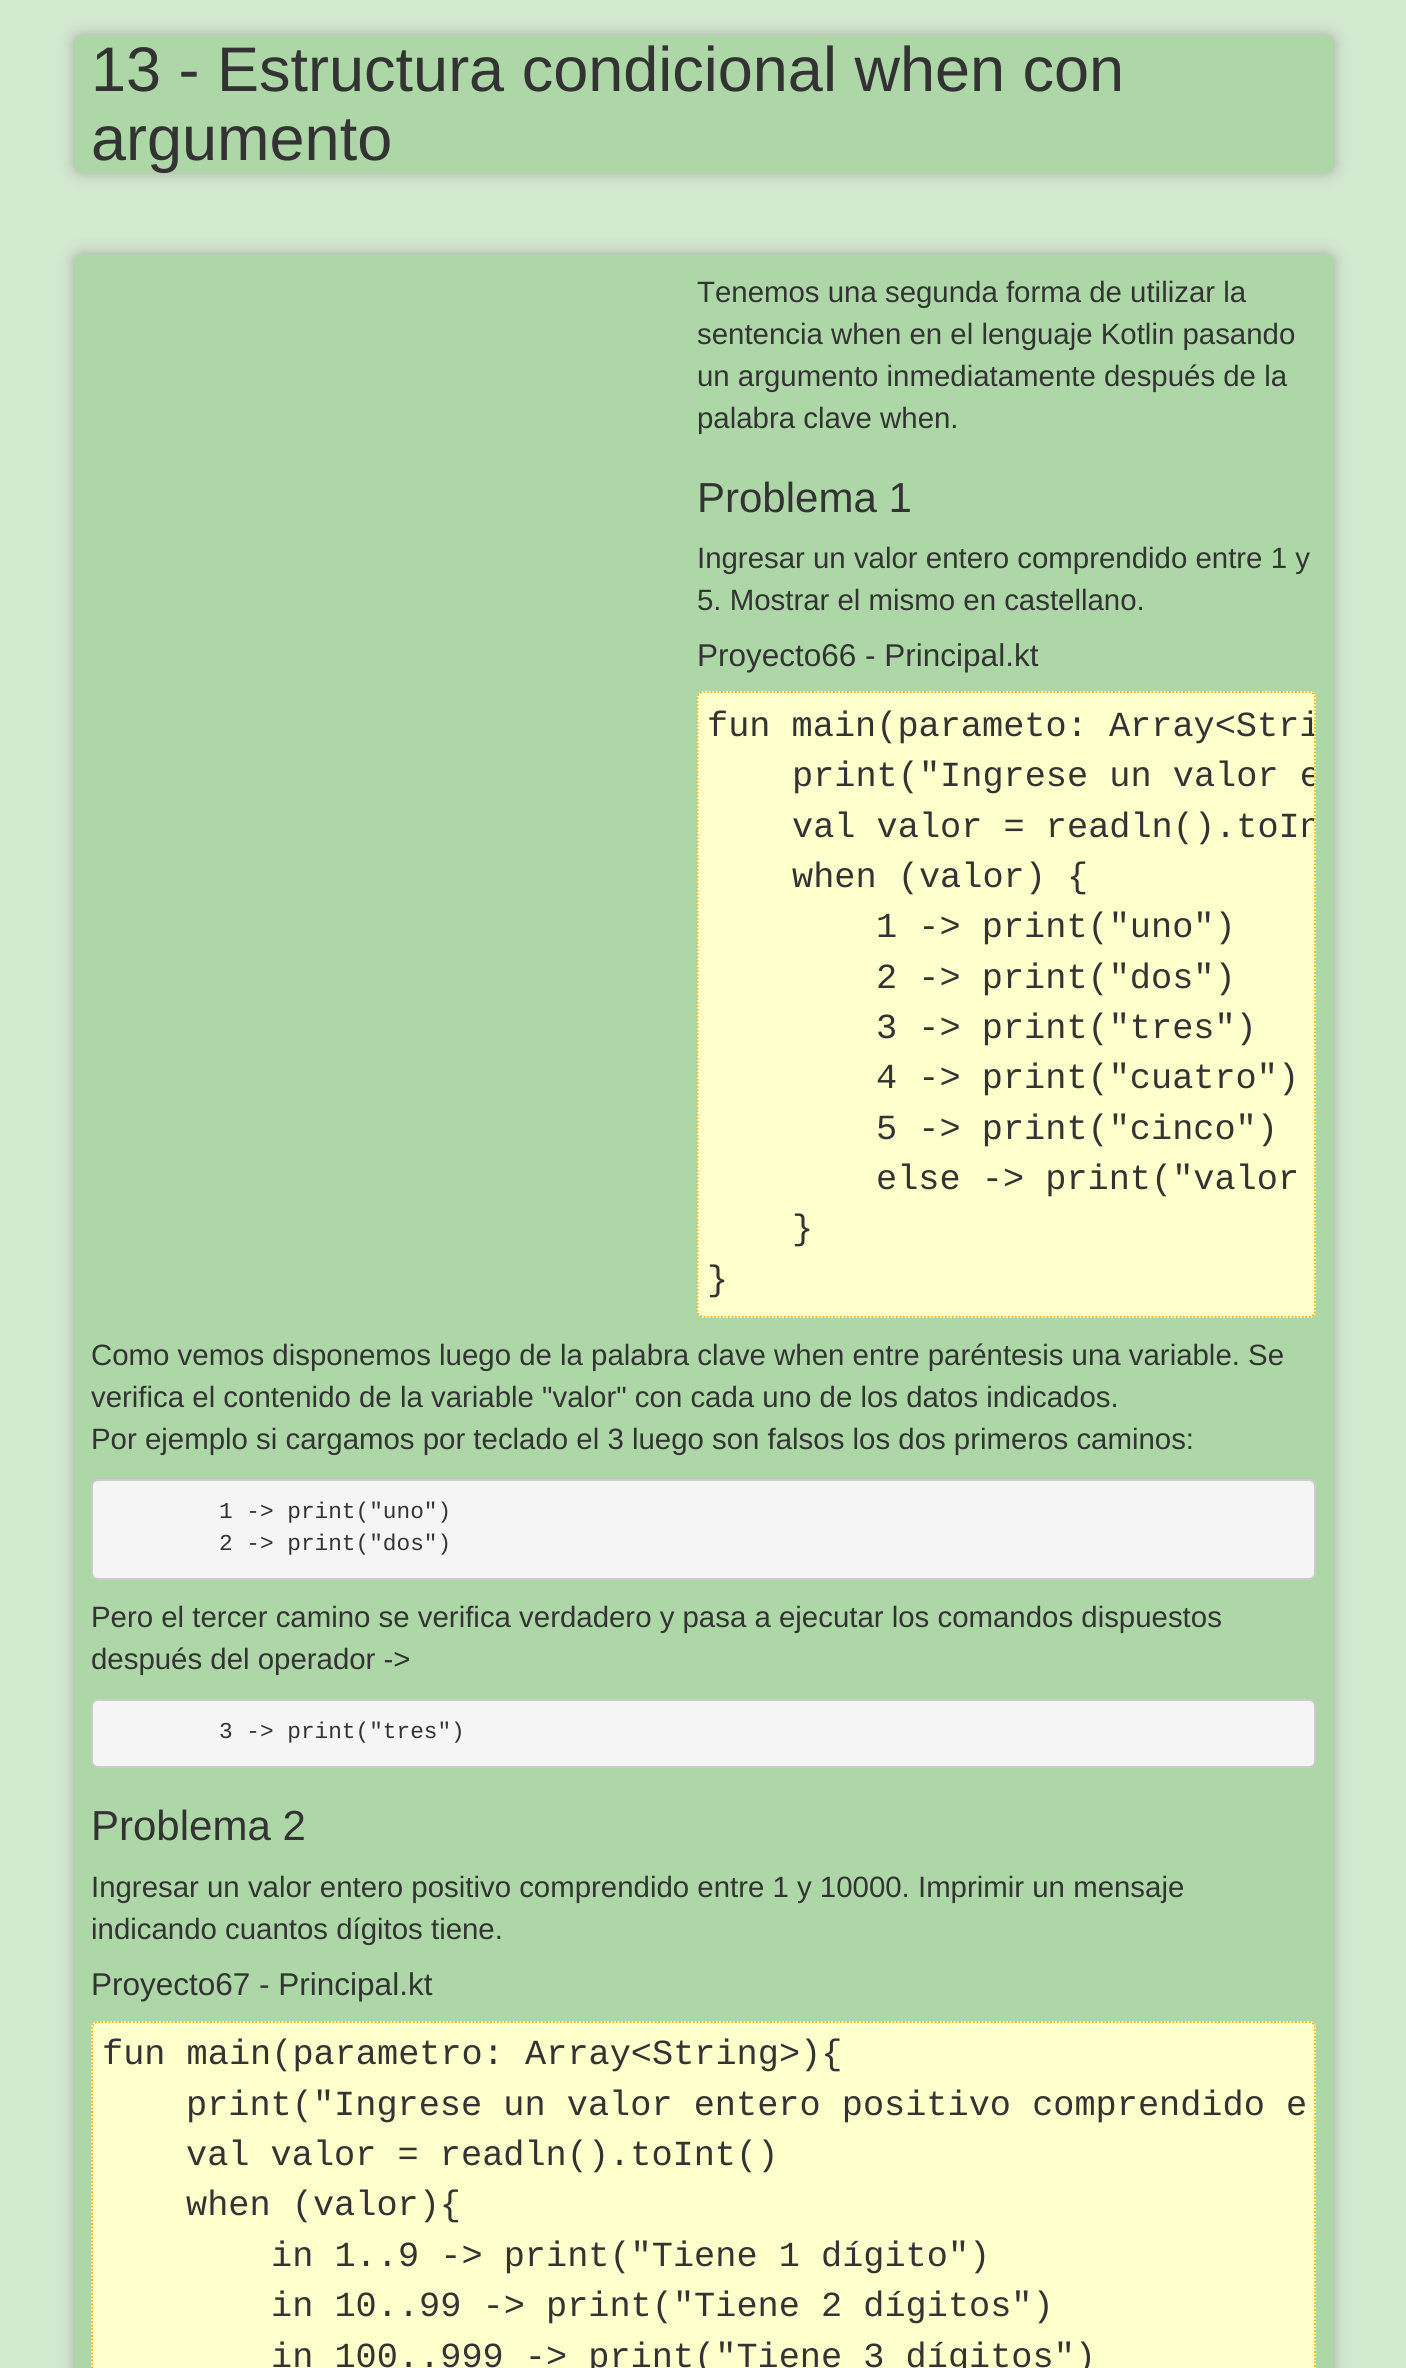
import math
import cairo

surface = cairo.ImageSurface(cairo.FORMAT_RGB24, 1406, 2368)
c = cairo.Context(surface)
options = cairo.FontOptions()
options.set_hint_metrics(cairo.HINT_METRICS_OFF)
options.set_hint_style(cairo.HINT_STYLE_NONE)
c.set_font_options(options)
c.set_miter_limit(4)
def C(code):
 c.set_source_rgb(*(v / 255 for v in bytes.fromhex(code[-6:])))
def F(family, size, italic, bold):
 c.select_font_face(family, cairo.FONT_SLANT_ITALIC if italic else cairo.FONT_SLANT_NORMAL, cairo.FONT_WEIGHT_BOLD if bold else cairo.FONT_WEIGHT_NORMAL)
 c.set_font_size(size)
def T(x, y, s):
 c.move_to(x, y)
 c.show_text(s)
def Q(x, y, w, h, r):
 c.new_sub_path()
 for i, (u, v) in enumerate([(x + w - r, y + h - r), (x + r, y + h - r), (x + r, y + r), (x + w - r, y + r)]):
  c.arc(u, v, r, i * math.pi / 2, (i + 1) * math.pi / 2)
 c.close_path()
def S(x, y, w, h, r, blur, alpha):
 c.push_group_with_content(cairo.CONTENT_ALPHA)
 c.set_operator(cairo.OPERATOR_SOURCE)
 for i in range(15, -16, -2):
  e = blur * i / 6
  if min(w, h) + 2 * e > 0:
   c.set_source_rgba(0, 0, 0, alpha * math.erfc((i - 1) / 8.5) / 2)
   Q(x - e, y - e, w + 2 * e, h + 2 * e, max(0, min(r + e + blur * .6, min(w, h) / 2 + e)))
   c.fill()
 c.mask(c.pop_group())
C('d3e9d0')
c.paint()
C('aaaaaa')
S(74,35,1260,138,7,7,1)
C('aed7a8')
Q(74,35,1260,138,7)
c.fill()
F('Liberation Sans',63,0,0)
C('333333')
T(91,91,'13 - Estructura condicional when con')
T(91,160,'argumento')
C('aaaaaa')
S(74,254,1260,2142,7,7,1)
C('aed7a8')
Q(74,254,1260,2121,7)
c.fill()
F('Liberation Sans',29.4,0,0)
C('333333')
T(697,302,'Tenemos una segunda forma de utilizar la')
T(697,344,'sentencia when en el lenguaje Kotlin pasando')
T(697,386,'un argumento inmediatamente después de la')
T(697,428,'palabra clave when.')
F('Liberation Sans',42,0,0)
T(697,512,'Problema 1')
F('Liberation Sans',29.4,0,0)
T(697,568,'Ingresar un valor entero comprendido entre 1 y')
T(697,610,'5. Mostrar el mismo en castellano.')
F('Liberation Sans',31.5,0,0)
T(697,666,'Proyecto66 - Principal.kt')
C('ffffcc')
Q(697,691,619,627,7)
c.fill()
c.new_path()
c.move_to(703.5,692)
c.line_to(1309,692)
c.curve_to(1312.5,692,1315,695,1315,698)
c.line_to(1315,1311)
c.curve_to(1315,1314,1312.5,1317,1309,1317)
c.line_to(703.5,1317)
c.curve_to(700,1317,697.5,1314,697.5,1311)
c.line_to(697.5,698)
c.curve_to(697.5,695,700,692,703.5,692)
c.close_path()
C('ffaa00')
c.set_line_width(1.8)
c.set_dash([1.75,1.75])
c.stroke()
c.save()
Q(698,693,616,623,5)
c.clip()
F('Liberation Mono',35.25,0,0)
C('333333')
T(707,736,'fun main(parameto: Array<Stri')
T(792,786,'print("Ingrese un valor e')
T(792,837,'val valor = readln().toIn')
c.restore()
F('Liberation Mono',35.25,0,0)
C('333333')
T(792,887,'when (valor) {')
T(876,937,'1 -> print("uno")')
T(876,988,'2 -> print("dos")')
T(876,1038,'3 -> print("tres")')
T(876,1088,'4 -> print("cuatro")')
T(876,1139,'5 -> print("cinco")')
T(876,1189,'else -> print("valor')
T(792,1239,'}')
T(707,1290,'}')
F('Liberation Sans',29.4,0,0)
T(91,1365,'Como vemos disponemos luego de la palabra clave when entre paréntesis una variable. Se')
T(91,1407,'verifica el contenido de la variable "valor" con cada uno de los datos indicados.')
T(91,1449,'Por ejemplo si cargamos por teclado el 3 luego son falsos los dos primeros caminos:')
C('f5f5f5')
Q(92,1480,1223,99,6)
c.fill_preserve()
C('cccccc')
c.set_line_width(2)
c.set_dash([])
c.stroke()
F('Liberation Mono',22.75,0,0)
C('333333')
T(219,1518,'1 -> print("uno")')
T(219,1550,'2 -> print("dos")')
F('Liberation Sans',29.4,0,0)
T(91,1627,'Pero el tercer camino se verifica verdadero y pasa a ejecutar los comandos dispuestos')
T(91,1669,'después del operador ->')
C('f5f5f5')
Q(92,1700,1223,67,6)
c.fill_preserve()
C('cccccc')
c.stroke()
F('Liberation Mono',22.75,0,0)
C('333333')
T(219,1738,'3 -> print("tres")')
F('Liberation Sans',42,0,0)
T(91,1840,'Problema 2')
F('Liberation Sans',29.4,0,0)
T(91,1897,'Ingresar un valor entero positivo comprendido entre 1 y 10000. Imprimir un mensaje')
T(91,1939,'indicando cuantos dígitos tiene.')
F('Liberation Sans',31.5,0,0)
T(91,1995,'Proyecto67 - Principal.kt')
C('ffffcc')
Q(91,2021,1225,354,7)
c.fill()
c.new_path()
c.move_to(98,2022)
c.line_to(1309,2022)
c.curve_to(1312.5,2022,1315,2025,1315,2028)
c.line_to(1315,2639)
c.curve_to(1315,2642.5,1312.5,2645,1309,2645)
c.line_to(98,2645)
c.curve_to(94.5,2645,92,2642.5,92,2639)
c.line_to(92,2028)
c.curve_to(92,2025,94.5,2022,98,2022)
c.close_path()
C('ffaa00')
c.set_line_width(1.8)
c.set_dash([1.75,1.75])
c.stroke()
F('Liberation Mono',35.25,0,0)
C('333333')
T(102,2064,'fun main(parametro: Array<String>){')
T(186,2115,'print("Ingrese un valor entero positivo comprendido e')
T(186,2165,'val valor = readln().toInt()')
T(186,2215,'when (valor){')
T(271,2266,'in 1..9 -> print("Tiene 1 dígito")')
T(271,2316,'in 10..99 -> print("Tiene 2 dígitos")')
T(271,2367,'in 100..999 -> print("Tiene 3 dígitos")')
surface.write_to_png('o.png')
